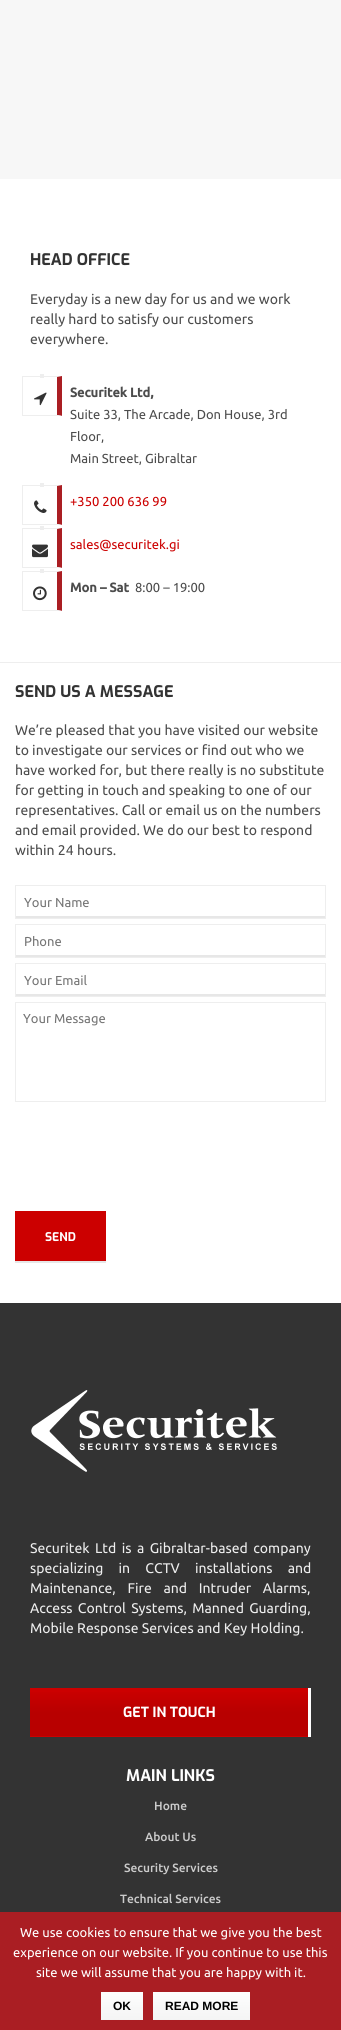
import math
import cairo

surface = cairo.ImageSurface(cairo.FORMAT_RGB24, 341, 2030)
c = cairo.Context(surface)
options = cairo.FontOptions()
options.set_hint_metrics(cairo.HINT_METRICS_OFF)
options.set_hint_style(cairo.HINT_STYLE_NONE)
c.set_font_options(options)
c.set_miter_limit(4)
def C(code):
 c.set_source_rgb(*(v / 255 for v in bytes.fromhex(code[-6:])))
def F(family, size, italic, bold):
 c.select_font_face(family, cairo.FONT_SLANT_ITALIC if italic else cairo.FONT_SLANT_NORMAL, cairo.FONT_WEIGHT_BOLD if bold else cairo.FONT_WEIGHT_NORMAL)
 c.set_font_size(size)
def T(x, y, s):
 c.move_to(x, y)
 c.show_text(s)
def L(x, y, s, letter, word):
 c.move_to(x, y)
 for ch in s:
  c.show_text(ch)
  c.rel_move_to(letter + word * (ch == ' '), 0)
def R(x, y, w, h):
 c.rectangle(x, y, w, h)
 c.fill()
def I(path, x, y, w, h):
 c.save()
 c.set_source_surface(cairo.ImageSurface.create_from_png(path), x, y)
 c.rectangle(x, y, w, h)
 c.fill()
 c.restore()
C('ffffff')
c.paint()
C('f7f7f7')
R(0,0,341,179)
C('eeeeee')
R(0,662,341,1)
F('Exo',16,0,1)
C('333333')
T(30,265,'HEAD OFFICE')
F('Ubuntu',14,0,0)
C('4c4c4c')
T(30,304,'Everyday is a new day for us and we work')
T(30,324,'really hard to satisfy our customers')
T(30,344,'everywhere.')
C('eeeeee')
R(40,374,4,4)
c.new_path()
c.move_to(22,376)
c.line_to(62,376)
c.line_to(57,377)
c.line_to(23,377)
c.close_path()
c.fill()
C('aa1e23')
c.new_path()
c.move_to(62,376)
c.line_to(62,416)
c.line_to(57,415)
c.line_to(57,377)
c.close_path()
c.fill()
C('eeeeee')
c.new_path()
c.move_to(62,416)
c.line_to(22,416)
c.line_to(23,415)
c.line_to(57,415)
c.close_path()
c.fill()
R(22,376,1,40)
I('1.png',34,392,13,14)
F('Ubuntu',13,0,1)
C('4c4c4c')
T(70,397,'Securitek Ltd,')
F('Ubuntu',13,0,0)
T(70,419,'Suite 33, The Arcade, Don House, 3rd')
T(70,441,'Floor,')
T(70,463,'Main Street, Gibraltar')
C('eeeeee')
R(40,483,4,4)
c.new_path()
c.move_to(22,485)
c.line_to(62,485)
c.line_to(57,486)
c.line_to(23,486)
c.close_path()
c.fill()
C('aa1e23')
c.new_path()
c.move_to(62,485)
c.line_to(62,525)
c.line_to(57,524)
c.line_to(57,486)
c.close_path()
c.fill()
C('eeeeee')
c.new_path()
c.move_to(62,525)
c.line_to(22,525)
c.line_to(23,524)
c.line_to(57,524)
c.close_path()
c.fill()
R(22,485,1,40)
I('2.png',34,500,13,13)
C('cc0000')
T(70,506,'+350 200 636 99')
C('eeeeee')
R(40,526,4,4)
c.new_path()
c.move_to(22,528)
c.line_to(62,528)
c.line_to(57,529)
c.line_to(23,529)
c.close_path()
c.fill()
C('aa1e23')
c.new_path()
c.move_to(62,528)
c.line_to(62,568)
c.line_to(57,567)
c.line_to(57,529)
c.close_path()
c.fill()
C('eeeeee')
c.new_path()
c.move_to(62,568)
c.line_to(22,568)
c.line_to(23,567)
c.line_to(57,567)
c.close_path()
c.fill()
R(22,528,1,40)
I('3.png',32,544,16,14)
C('cc0000')
T(70,549,'sales@securitek.gi')
C('eeeeee')
R(40,569,4,4)
c.new_path()
c.move_to(22,571)
c.line_to(62,571)
c.line_to(57,572)
c.line_to(23,572)
c.close_path()
c.fill()
C('aa1e23')
c.new_path()
c.move_to(62,571)
c.line_to(62,611)
c.line_to(57,610)
c.line_to(57,572)
c.close_path()
c.fill()
C('eeeeee')
c.new_path()
c.move_to(62,611)
c.line_to(22,611)
c.line_to(23,610)
c.line_to(57,610)
c.close_path()
c.fill()
R(22,571,1,40)
I('4.png',33,586,14,15)
F('Ubuntu',13,0,1)
C('4c4c4c')
T(70,592,'Mon – Sat')
F('Ubuntu',13,0,0)
T(135,592,'8:00 – 19:00')
F('Exo',16,0,1)
C('333333')
T(15,697,'SEND US A MESSAGE')
F('Ubuntu',14,0,0)
C('4c4c4c')
T(15,735,'We’re pleased that you have visited our website')
T(15,755,'to investigate our services or find out who we')
T(15,775,'have worked for, but there really is no substitute')
T(15,795,'for getting in touch and speaking to one of our')
T(15,815,'representatives. Call or email us on the numbers')
T(15,835,'and email provided. We do our best to respond')
T(15,855,'within 24 hours.')
C('e7e7e7')
R(16,916,309,2)
c.rectangle(15.5,885.5,310,33)
C('eeeeee')
c.set_line_width(1)
c.stroke()
F('Ubuntu',13,0,0)
C('757575')
T(24,907,'Your Name')
C('e7e7e7')
R(16,955,309,2)
c.rectangle(15.5,924.5,310,33)
C('eeeeee')
c.stroke()
C('757575')
T(24,946,'Phone')
C('e7e7e7')
R(16,994,309,2)
c.rectangle(15.5,963.5,310,33)
C('eeeeee')
c.stroke()
C('757575')
T(24,985,'Your Email')
c.rectangle(15.5,1002.5,310,99)
C('eeeeee')
c.stroke()
C('757575')
T(23,1023,'Your Message')
C('cc0000')
R(15,1211,91,50)
C('e7e7e7')
R(15,1261,91,2)
F('Exo',12,0,1)
C('ffffff')
T(45,1241,'SEND')
C('333333')
R(0,1303,341,609)
I('5.png',31,1390,246,82)
F('Ubuntu',14,0,0)
C('eeeeee')
L(30,1553,'Securitek Ltd is a Gibraltar-based company',0,2.25)
L(30,1573,'specializing in CCTV installations and',0,12)
L(30,1593,'Maintenance, Fire and Intruder Alarms,',0,8.5)
L(30,1613,'Access Control Systems, Manned Guarding,',0,2)
T(30,1633,'Mobile Response Services and Key Holding.')
C('ffffff')
R(308,1688,3,49)
C('cc0000')
R(30,1688,278,49)
gradient = cairo.LinearGradient(307,1689,307,1736)
gradient.add_color_stop_rgba(0,0.8,0,0,1)
gradient.add_color_stop_rgba(.5,0.722,0,0,1)
gradient.add_color_stop_rgba(1,0.722,0,0,1)
c.set_source(gradient)
R(30,1692,278,44)
F('Exo',14,0,1)
C('ffffff')
T(123,1717,'GET IN TOUCH')
F('Exo',16,0,1)
T(126,1781,'MAIN LINKS')
F('Ubuntu Medium',12,0,0)
C('cccccc')
T(154,1810,'Home')
T(145,1841,'About Us')
T(124,1872,'Security Services')
T(120,1903,'Technical Services')
C('aa1e23')
R(0,1912,341,118)
F('Ubuntu',13,0,0)
C('ffffff')
T(20,1937,'We use cookies to ensure that we give you the best')
T(13,1957,'experience on our website. If you continue to use this')
T(36,1977,'site we will assume that you are happy with it.')
gradient = cairo.LinearGradient(122,1992,122,2020)
gradient.add_color_stop_rgba(0,0.996,0.996,0.996,1)
gradient.add_color_stop_rgba(1,0.957,0.957,0.957,1)
c.set_source(gradient)
R(101,1992,42,28)
F('Liberation Sans',12,0,1)
C('000000')
T(113,2010,'OK')
gradient = cairo.LinearGradient(202,1992,202,2020)
gradient.add_color_stop_rgba(0,0.996,0.996,0.996,1)
gradient.add_color_stop_rgba(1,0.957,0.957,0.957,1)
c.set_source(gradient)
R(153,1992,97,28)
C('000000')
T(165,2010,'READ MORE')
surface.write_to_png('o.png')
